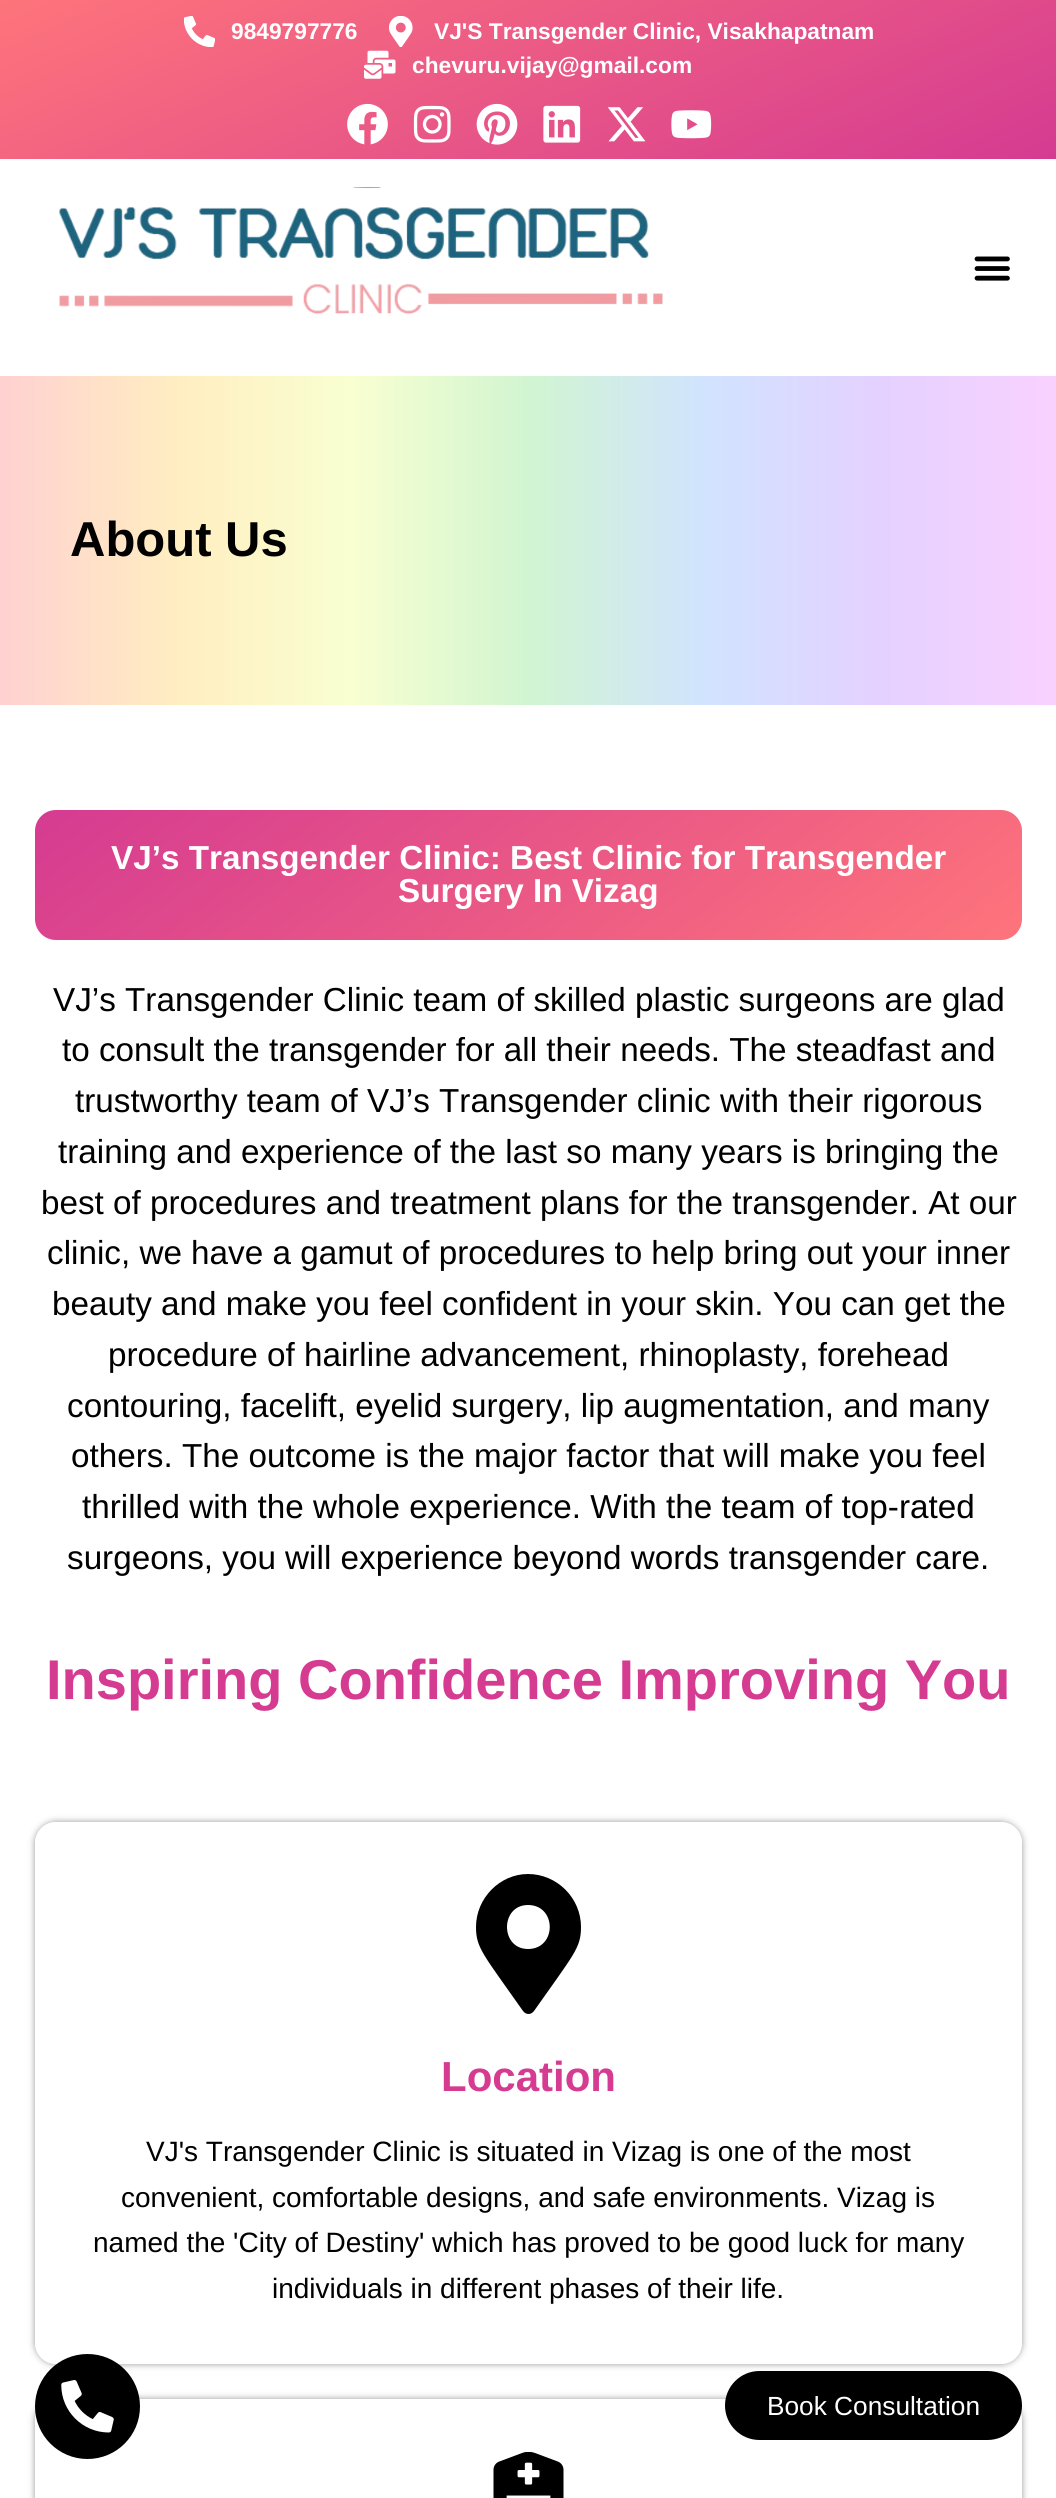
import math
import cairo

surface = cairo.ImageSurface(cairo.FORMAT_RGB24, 1056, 2498)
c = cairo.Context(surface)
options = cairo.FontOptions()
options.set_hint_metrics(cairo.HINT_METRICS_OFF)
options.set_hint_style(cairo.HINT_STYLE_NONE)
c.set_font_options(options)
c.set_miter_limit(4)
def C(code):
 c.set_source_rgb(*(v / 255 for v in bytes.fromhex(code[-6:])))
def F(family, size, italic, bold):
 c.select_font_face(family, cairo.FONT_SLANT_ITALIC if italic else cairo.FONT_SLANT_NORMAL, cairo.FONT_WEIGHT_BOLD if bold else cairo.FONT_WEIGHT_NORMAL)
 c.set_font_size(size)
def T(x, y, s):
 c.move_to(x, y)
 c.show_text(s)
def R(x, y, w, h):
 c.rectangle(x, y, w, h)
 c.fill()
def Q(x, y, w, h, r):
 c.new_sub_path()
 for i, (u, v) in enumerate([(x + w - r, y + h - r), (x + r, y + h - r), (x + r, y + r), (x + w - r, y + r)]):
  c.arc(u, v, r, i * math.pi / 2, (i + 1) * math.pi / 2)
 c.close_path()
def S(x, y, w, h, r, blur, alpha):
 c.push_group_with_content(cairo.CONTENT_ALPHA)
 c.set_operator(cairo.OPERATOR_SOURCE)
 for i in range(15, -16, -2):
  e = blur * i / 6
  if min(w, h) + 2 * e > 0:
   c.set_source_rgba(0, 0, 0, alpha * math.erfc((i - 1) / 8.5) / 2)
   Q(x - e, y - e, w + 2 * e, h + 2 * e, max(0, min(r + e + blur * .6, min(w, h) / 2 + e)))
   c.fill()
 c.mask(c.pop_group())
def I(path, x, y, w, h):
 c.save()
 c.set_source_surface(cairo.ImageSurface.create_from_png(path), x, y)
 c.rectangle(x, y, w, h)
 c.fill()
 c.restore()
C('ffffff')
c.paint()
gradient = cairo.LinearGradient(646,342,411,-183)
gradient.add_color_stop_rgba(0,0.835,0.231,0.569,1)
gradient.add_color_stop_rgba(1,0.996,0.455,0.482,1)
c.set_source(gradient)
R(0,0,1056,159)
I('1.png',184,16,31,31)
F('Liberation Sans',22.75,0,1)
C('ffffff')
T(231,39,'9849797776')
I('2.png',388,16,25,31)
T(434,39,'VJ\'S Transgender Clinic, Visakhapatnam')
I('3.png',364,50,32,29)
T(412,73,'chevuru.vijay@gmail.com')
I('4.png',347,103,41,42)
I('5.png',413,105,38,38)
I('6.png',476,103,42,42)
I('7.png',543,105,38,38)
I('8.png',607,107,39,35)
I('9.png',671,110,41,29)
I('10.png',59,187,604,128)
I('11.png',974,256,36,25)
gradient = cairo.LinearGradient(0,541,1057,541)
gradient.add_color_stop_rgba(0,1,0.82,0.82,1)
gradient.add_color_stop_rgba(.17,1,0.933,0.757,1)
gradient.add_color_stop_rgba(.33,0.976,1,0.82,1)
gradient.add_color_stop_rgba(.5,0.82,0.961,0.82,1)
gradient.add_color_stop_rgba(.67,0.82,0.89,1,1)
gradient.add_color_stop_rgba(.83,0.894,0.82,1,1)
gradient.add_color_stop_rgba(1,0.976,0.82,1,1)
c.set_source(gradient)
R(0,376,1056,329)
F('Liberation Sans',49,0,1)
C('000000')
T(70,556,'About Us')
gradient = cairo.LinearGradient(319,597,738,1153)
gradient.add_color_stop_rgba(0,0.835,0.231,0.569,1)
gradient.add_color_stop_rgba(1,0.996,0.455,0.482,1)
c.set_source(gradient)
Q(35,810,987,130,21)
c.fill()
F('Liberation Sans',33.25,0,1)
C('ffffff')
T(111,869,'VJ’s Transgender Clinic: Best Clinic for Transgender')
T(398,902,'Surgery In Vizag')
F('Liberation Sans',33.25,0,0)
C('000000')
T(53,1011,'VJ’s Transgender Clinic team of skilled plastic surgeons are glad')
T(62,1061,'to consult the transgender for all their needs. The steadfast and')
T(75,1112,'trustworthy team of VJ’s Transgender clinic with their rigorous')
T(58,1163,'training and experience of the last so many years is bringing the')
T(41,1214,'best of procedures and treatment plans for the transgender. At our')
T(47,1264,'clinic, we have a gamut of procedures to help bring out your inner')
T(52,1315,'beauty and make you feel confident in your skin. You can get the')
T(108,1366,'procedure of hairline advancement, rhinoplasty, forehead')
T(67,1417,'contouring, facelift, eyelid surgery, lip augmentation, and many')
T(71,1467,'others. The outcome is the major factor that will make you feel')
T(82,1518,'thrilled with the whole experience. With the team of top-rated')
T(67,1569,'surgeons, you will experience beyond words transgender care.')
F('Liberation Sans',56,0,1)
C('d53b91')
T(46,1699,'Inspiring Confidence Improving You')
c.save()
c.set_fill_rule(cairo.FILL_RULE_EVEN_ODD)
c.new_path()
c.move_to(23,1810)
c.line_to(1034,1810)
c.line_to(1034,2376)
c.line_to(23,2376)
c.close_path()
c.move_to(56,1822)
c.line_to(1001,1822)
c.curve_to(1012.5,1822,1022,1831.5,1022,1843)
c.line_to(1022,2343)
c.curve_to(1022,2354.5,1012.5,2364,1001,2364)
c.line_to(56,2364)
c.curve_to(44.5,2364,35,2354.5,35,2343)
c.line_to(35,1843)
c.curve_to(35,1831.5,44.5,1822,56,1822)
c.close_path()
c.clip()
C('000000')
S(35,1822,987,542,21,3.5,.41)
c.restore()
C('000000')
c.new_path()
c.move_to(523,2011)
c.curve_to(483,1954,476,1948,476,1927)
c.curve_to(476,1898,500,1874,528,1874)
c.curve_to(557,1874,581,1898,581,1927)
c.curve_to(581,1948,574,1954,534,2011)
c.curve_to(531,2015,526,2015,523,2011)
c.close_path()
c.move_to(528,1949)
c.curve_to(557,1949,557,1905,528,1905)
c.curve_to(500,1905,500,1949,528,1949)
c.close_path()
c.fill()
F('Liberation Sans',42,0,1)
C('d53b91')
T(441,2091,'Location')
F('Liberation Sans',28,0,0)
C('000000')
T(146,2161,'VJ\'s Transgender Clinic is situated in Vizag is one of the most')
T(121,2207,'convenient, comfortable designs, and safe environments. Vizag is')
T(93,2252,'named the \'City of Destiny\' which has proved to be good luck for many')
T(272,2298,'individuals in different phases of their life.')
c.save()
c.set_fill_rule(cairo.FILL_RULE_EVEN_ODD)
c.new_path()
c.move_to(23,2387)
c.line_to(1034,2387)
c.line_to(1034,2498)
c.line_to(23,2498)
c.close_path()
c.move_to(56,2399)
c.line_to(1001,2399)
c.curve_to(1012.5,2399,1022,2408.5,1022,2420)
c.line_to(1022,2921)
c.curve_to(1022,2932.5,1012.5,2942,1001,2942)
c.line_to(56,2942)
c.curve_to(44.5,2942,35,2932.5,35,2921)
c.line_to(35,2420)
c.curve_to(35,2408.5,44.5,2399,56,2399)
c.close_path()
c.clip()
C('000000')
S(35,2399,987,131,21,3.5,.41)
c.restore()
I('12.png',493,2452,71,46)
c.arc(87.5,2406.5,52.5,0,2 * math.pi)
c.fill()
I('13.png',61,2380,53,53)
Q(725,2371,297,69,34.5)
c.fill()
F('Liberation Sans',26.25,0,0)
C('ffffff')
T(767,2415,'Book Consultation')
surface.write_to_png('o.png')
